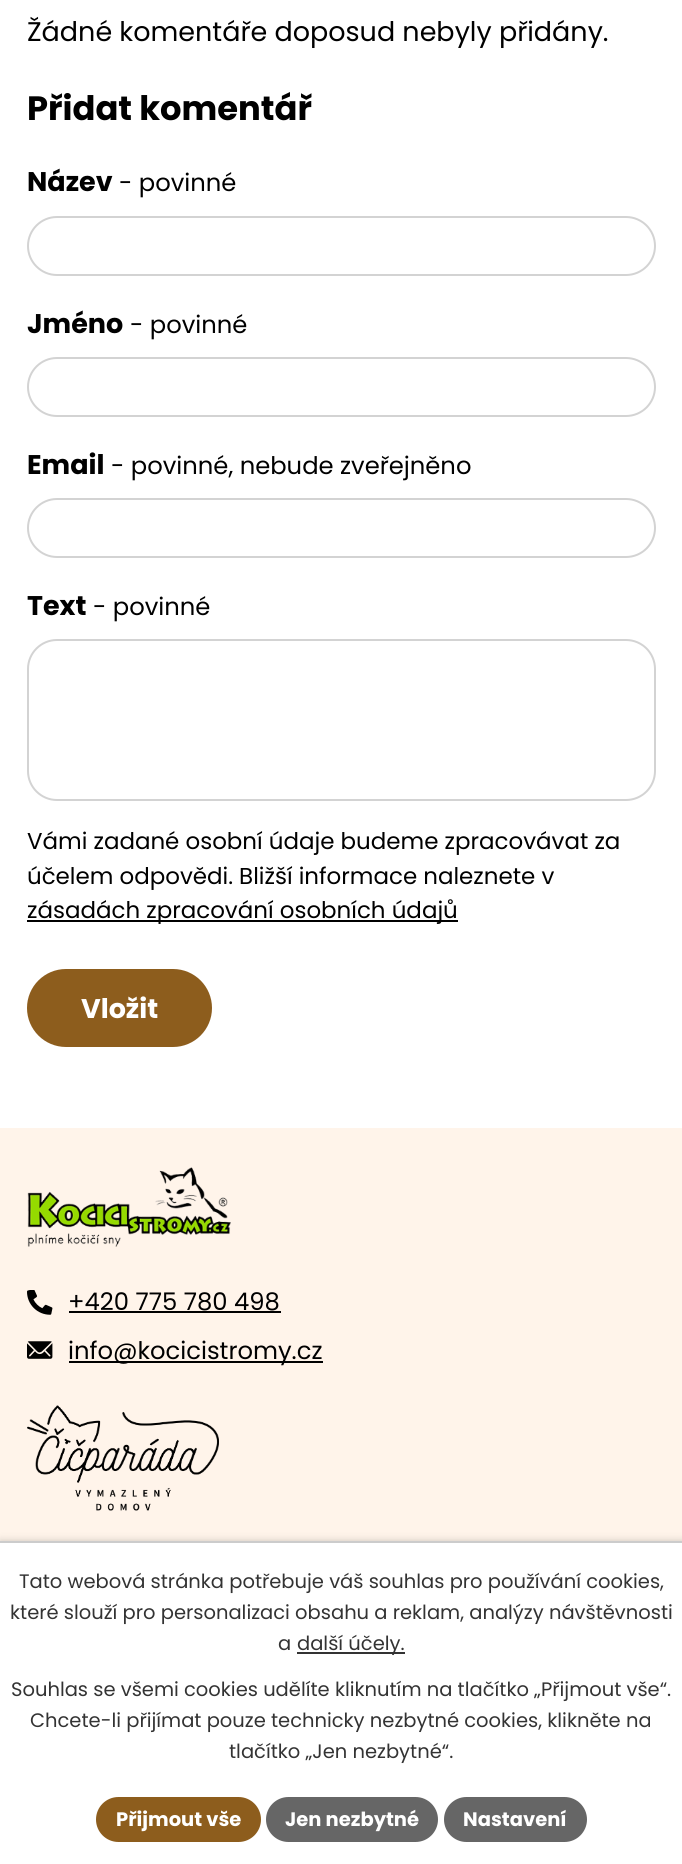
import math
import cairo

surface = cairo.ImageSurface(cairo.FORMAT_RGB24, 682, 1864)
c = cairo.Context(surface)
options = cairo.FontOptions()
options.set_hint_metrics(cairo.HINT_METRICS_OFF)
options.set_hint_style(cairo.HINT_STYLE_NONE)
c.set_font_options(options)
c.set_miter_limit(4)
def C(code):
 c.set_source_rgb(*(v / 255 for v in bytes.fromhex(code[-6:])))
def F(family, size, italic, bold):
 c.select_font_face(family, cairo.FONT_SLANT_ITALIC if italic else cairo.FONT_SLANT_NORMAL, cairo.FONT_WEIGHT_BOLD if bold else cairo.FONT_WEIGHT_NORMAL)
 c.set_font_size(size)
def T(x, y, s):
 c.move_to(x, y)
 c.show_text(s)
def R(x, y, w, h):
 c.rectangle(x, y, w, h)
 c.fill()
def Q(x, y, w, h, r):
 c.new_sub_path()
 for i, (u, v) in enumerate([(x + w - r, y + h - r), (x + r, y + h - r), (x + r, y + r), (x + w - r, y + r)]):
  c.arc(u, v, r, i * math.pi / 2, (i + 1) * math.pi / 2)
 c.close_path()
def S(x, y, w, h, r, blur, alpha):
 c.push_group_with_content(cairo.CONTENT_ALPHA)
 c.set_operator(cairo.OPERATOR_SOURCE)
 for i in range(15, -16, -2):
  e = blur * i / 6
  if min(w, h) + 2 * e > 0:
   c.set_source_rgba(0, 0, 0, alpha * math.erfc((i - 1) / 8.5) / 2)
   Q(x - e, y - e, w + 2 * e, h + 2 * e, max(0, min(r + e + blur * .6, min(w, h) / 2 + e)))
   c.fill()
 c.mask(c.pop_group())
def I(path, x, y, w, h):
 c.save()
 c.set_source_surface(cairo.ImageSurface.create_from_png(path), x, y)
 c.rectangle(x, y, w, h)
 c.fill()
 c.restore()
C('ffffff')
c.paint()
F('Poppins',27,0,0)
C('000000')
T(27,41,'Žádné komentáře doposud nebyly přidány.')
F('Poppins',33.75,0,1)
T(27,120,'Přidat komentář')
F('Poppins',27,0,1)
T(27,191,'Název')
F('Poppins',24.25,0,0)
T(119,191,'- povinné')
Q(28,217,627,58,29)
C('d3d3d3')
c.stroke()
F('Poppins',27,0,1)
C('000000')
T(27,333,'Jméno')
F('Poppins',24.25,0,0)
T(130,333,'- povinné')
Q(28,358,627,58,29)
C('d3d3d3')
c.stroke()
F('Poppins',27,0,1)
C('000000')
T(27,474,'Email')
F('Poppins',24.25,0,0)
T(111,474,'- povinné, nebude zveřejněno')
Q(28,499,627,58,29)
C('d3d3d3')
c.stroke()
F('Poppins',27,0,1)
C('000000')
T(27,615,'Text')
F('Poppins',24.25,0,0)
T(93,615,'- povinné')
Q(28,640,627,160,29)
C('d3d3d3')
c.stroke()
F('Poppins',22.95,0,0)
C('000000')
T(27,849,'Vámi zadané osobní údaje budeme zpracovávat za')
T(27,884,'účelem odpovědi. Bližší informace naleznete v')
R(27,920,431,2)
T(27,918,'zásadách zpracování osobních údajů')
C('8d5d1d')
Q(27,969,185,78,39)
c.fill()
F('Poppins',27,0,1)
C('ffffff')
T(81,1018,'Vložit')
C('fff4ea')
R(0,1128,682,413)
I('1.png',27,1167,204,80)
I('2.png',27,1290,26,25)
F('Poppins',24.25,0,0)
C('000000')
T(68,1310,'+420 775 780 498')
R(69,1311,212,2)
I('3.png',27,1341,26,18)
R(69,1361,254,2)
T(68,1359,'info@kocicistromy.cz')
I('4.png',27,1405,192,106)
C('000000')
S(0,1541,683,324,0,4,.2)
C('ffffff')
R(0,1543,682,321)
C('cccccc')
R(0,1541,682,2)
F('Poppins',19.5,0,0)
C('333333')
T(19,1588,'Tato webová stránka potřebuje váš souhlas pro používání cookies,')
T(10,1619,'které slouží pro personalizaci obsahu a reklam, analýzy návštěvnosti')
T(278,1650,'a')
R(297,1652,108,2)
T(297,1650,'další účely.')
T(11,1696,'Souhlas se všemi cookies udělíte kliknutím na tlačítko „Přijmout vše“.')
T(30,1727,'Chcete-li přijímat pouze technicky nezbytné cookies, klikněte na')
T(229,1758,'tlačítko „Jen nezbytné“.')
C('8d5d1d')
Q(96,1797,165,45,22.5)
c.fill()
F('Poppins',19.5,0,1)
C('ffffff')
T(116,1826,'Přijmout vše')
C('666666')
Q(266,1797,172,45,22.5)
c.fill()
C('ffffff')
T(285,1826,'Jen nezbytné')
C('666666')
Q(444,1797,143,45,22.5)
c.fill()
C('ffffff')
T(463,1826,'Nastavení')
surface.write_to_png('o.png')
